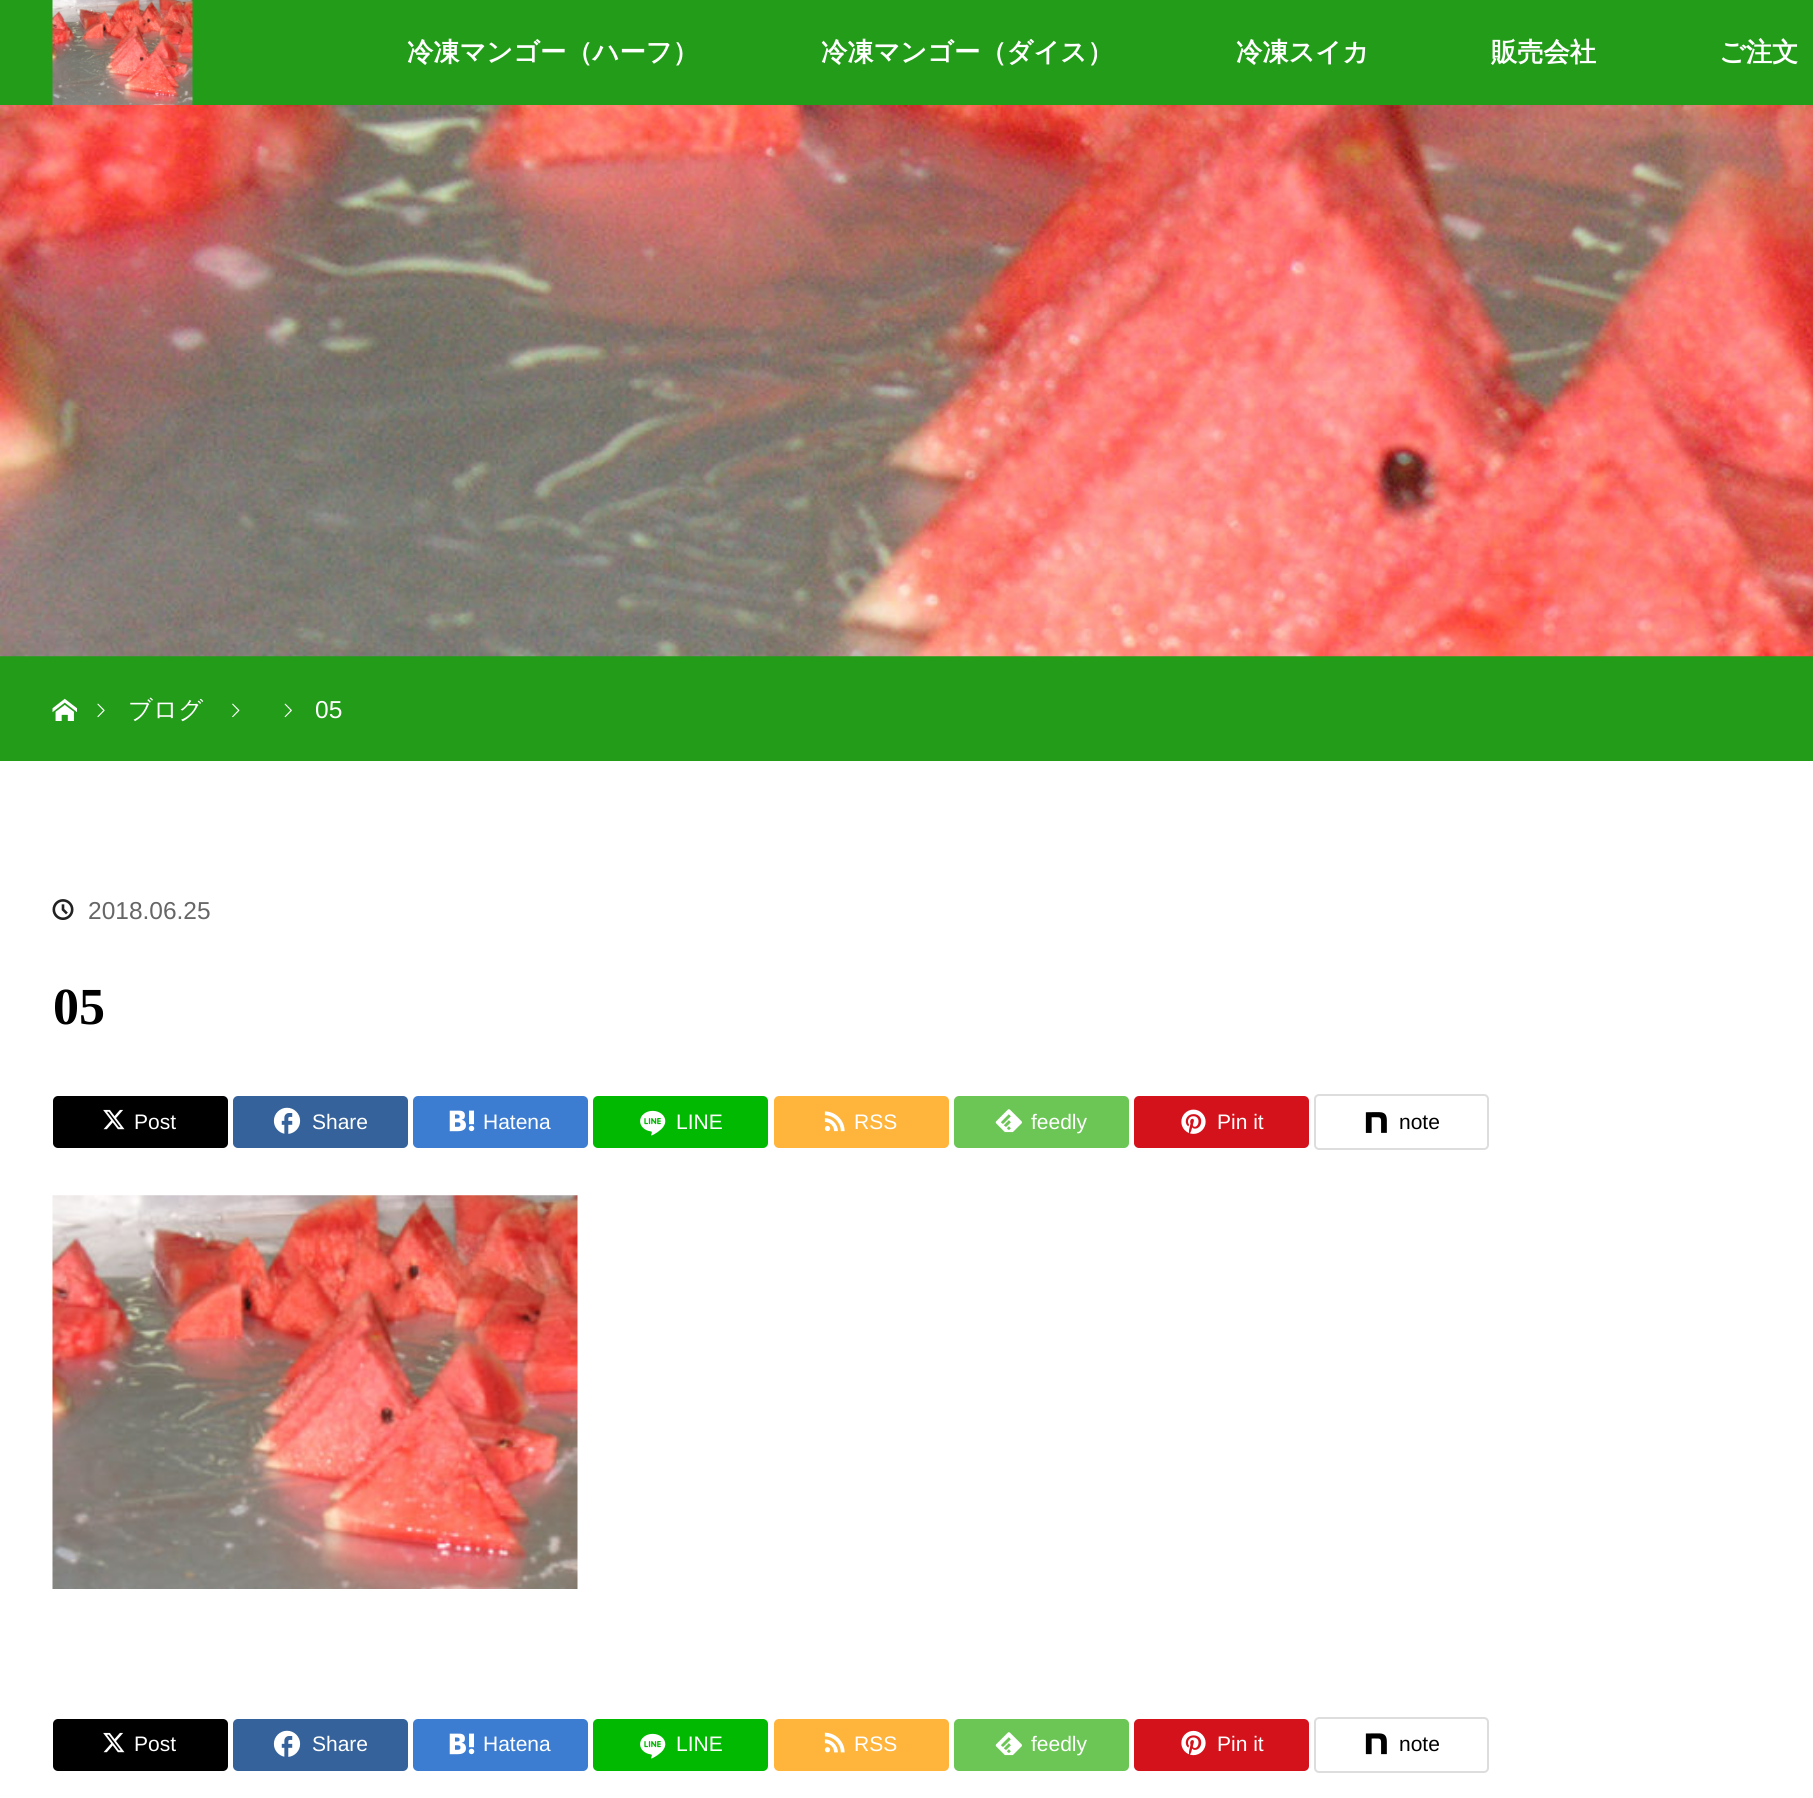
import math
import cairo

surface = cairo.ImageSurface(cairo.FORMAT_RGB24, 1813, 1798)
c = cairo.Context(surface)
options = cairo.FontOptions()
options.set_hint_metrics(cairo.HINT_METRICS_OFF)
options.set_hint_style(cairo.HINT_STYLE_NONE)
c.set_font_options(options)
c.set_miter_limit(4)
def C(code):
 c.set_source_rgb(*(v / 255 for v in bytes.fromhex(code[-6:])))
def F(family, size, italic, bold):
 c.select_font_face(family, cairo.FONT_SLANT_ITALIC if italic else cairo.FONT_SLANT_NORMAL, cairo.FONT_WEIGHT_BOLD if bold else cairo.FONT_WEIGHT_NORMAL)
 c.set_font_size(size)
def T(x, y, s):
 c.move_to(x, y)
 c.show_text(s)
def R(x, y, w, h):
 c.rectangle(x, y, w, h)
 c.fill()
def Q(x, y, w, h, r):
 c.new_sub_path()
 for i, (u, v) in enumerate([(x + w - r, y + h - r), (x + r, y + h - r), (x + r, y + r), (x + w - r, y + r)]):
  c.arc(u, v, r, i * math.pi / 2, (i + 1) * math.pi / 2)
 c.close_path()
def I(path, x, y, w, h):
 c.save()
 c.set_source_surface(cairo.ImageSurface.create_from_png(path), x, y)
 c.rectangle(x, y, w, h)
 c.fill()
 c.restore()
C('ffffff')
c.paint()
C('239c1a')
R(0,0,1813,105)
I('1.png',52,0,141,105)
F('WenQuanYi Zen Hei',26.25,0,1)
C('ffffff')
T(407,61,'冷凍マンゴー（ハーフ）')
T(821,61,'冷凍マンゴー（ダイス）')
T(1236,61,'冷凍スイカ')
T(1491,61,'販売会社')
T(1719,61,'ご注文')
C('239c1a')
R(0,656,1813,105)
I('2.png',0,105,1813,552)
I('3.png',52,698,25,23)
I('4.png',97,703,8,15)
F('WenQuanYi Zen Hei Medium',24.5,0,0)
C('ffffff')
T(128,718,'ブログ')
I('5.png',232,703,8,15)
I('6.png',284,703,8,15)
F('Liberation Sans',24.5,0,0)
T(315,718,'05')
I('7.png',52,899,22,21)
C('666666')
T(88,919,'2018.06.25')
F('Liberation Serif',52,0,1)
C('000000')
T(53,1024,'05')
Q(53,1096,175,52,5)
c.fill()
I('8.png',103,1109,22,21)
F('Liberation Sans',21,0,0)
C('ffffff')
T(134,1129,'Post')
C('35629a')
Q(233,1096,175,52,5)
c.fill()
I('9.png',273,1107,28,27)
C('ffffff')
T(312,1129,'Share')
C('3c7dd1')
Q(413,1096,175,52,5)
c.fill()
I('10.png',449,1110,26,22)
C('ffffff')
T(483,1129,'Hatena')
C('00b900')
Q(593,1096,175,52,5)
c.fill()
I('11.png',640,1110,26,26)
C('ffffff')
T(676,1129,'LINE')
C('ffb53c')
Q(774,1096,175,52,5)
c.fill()
I('12.png',824,1111,21,21)
C('ffffff')
T(854,1129,'RSS')
C('6cc655')
Q(954,1096,175,52,5)
c.fill()
I('13.png',995,1109,27,24)
C('ffffff')
T(1031,1129,'feedly')
C('d4121c')
Q(1134,1096,175,52,5)
c.fill()
I('14.png',1181,1109,25,25)
C('ffffff')
T(1217,1129,'Pin it')
Q(1315,1095,173,54,4)
C('dddddd')
c.stroke()
I('15.png',1365,1112,22,21)
C('000000')
T(1399,1129,'note')
I('16.png',52,1195,526,394)
Q(53,1719,175,52,5)
c.fill()
I('8.png',103,1732,22,21)
C('ffffff')
T(134,1751,'Post')
C('35629a')
Q(233,1719,175,52,5)
c.fill()
I('9.png',273,1730,28,27)
C('ffffff')
T(312,1751,'Share')
C('3c7dd1')
Q(413,1719,175,52,5)
c.fill()
I('10.png',449,1733,26,22)
C('ffffff')
T(483,1751,'Hatena')
C('00b900')
Q(593,1719,175,52,5)
c.fill()
I('11.png',640,1733,26,26)
C('ffffff')
T(676,1751,'LINE')
C('ffb53c')
Q(774,1719,175,52,5)
c.fill()
I('17.png',824,1732,21,21)
C('ffffff')
T(854,1751,'RSS')
C('6cc655')
Q(954,1719,175,52,5)
c.fill()
I('13.png',995,1732,27,24)
C('ffffff')
T(1031,1751,'feedly')
C('d4121c')
Q(1134,1719,175,52,5)
c.fill()
I('18.png',1181,1730,25,26)
C('ffffff')
T(1217,1751,'Pin it')
Q(1315,1718,173,54,4)
C('dddddd')
c.stroke()
I('19.png',1365,1733,22,22)
C('000000')
T(1399,1751,'note')
surface.write_to_png('o.png')
